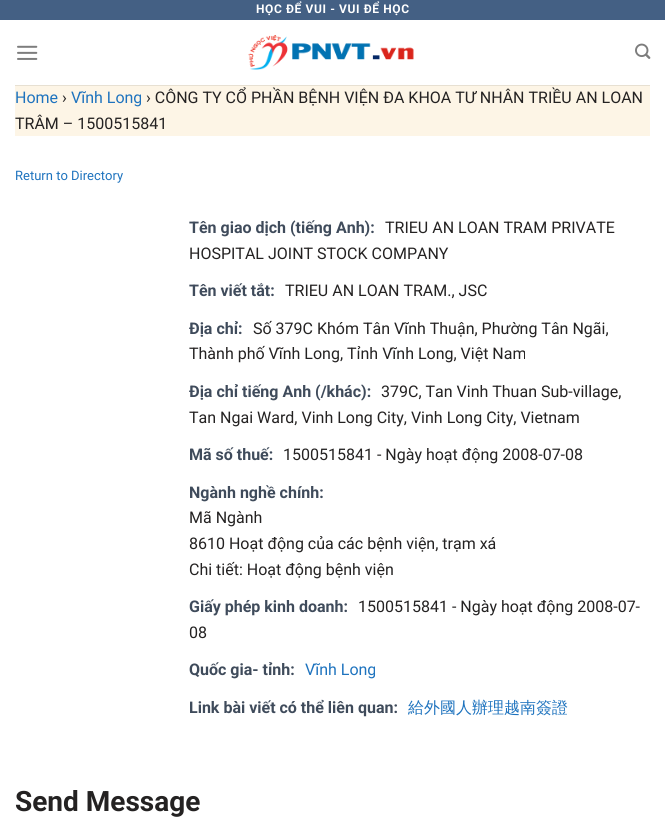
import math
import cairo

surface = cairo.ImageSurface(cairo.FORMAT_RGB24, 665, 836)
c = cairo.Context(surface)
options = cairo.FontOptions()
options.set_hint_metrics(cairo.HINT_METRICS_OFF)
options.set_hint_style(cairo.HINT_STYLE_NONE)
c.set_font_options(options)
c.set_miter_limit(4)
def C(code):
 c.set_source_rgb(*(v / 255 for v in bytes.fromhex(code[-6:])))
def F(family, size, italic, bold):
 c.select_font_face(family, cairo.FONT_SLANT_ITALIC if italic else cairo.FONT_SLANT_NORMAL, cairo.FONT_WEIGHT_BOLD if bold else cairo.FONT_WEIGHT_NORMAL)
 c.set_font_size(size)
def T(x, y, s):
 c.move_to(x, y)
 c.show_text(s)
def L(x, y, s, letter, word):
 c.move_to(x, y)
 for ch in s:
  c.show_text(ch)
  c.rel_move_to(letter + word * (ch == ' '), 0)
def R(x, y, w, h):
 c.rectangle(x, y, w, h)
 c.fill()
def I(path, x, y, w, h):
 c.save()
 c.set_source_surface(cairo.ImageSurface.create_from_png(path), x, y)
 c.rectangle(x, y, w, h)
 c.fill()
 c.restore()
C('ffffff')
c.paint()
C('446084')
R(0,0,665,20)
F('Roboto',12,0,1)
C('ffffff')
L(256,13,'HỌC ĐỂ VUI - VUI ĐỂ HỌC',.6,0)
I('1.png',17,45,21,15)
I('2.png',248,35,166,35)
I('3.png',635,43,16,16)
C('e7e0d2')
R(15,85,635,1)
C('fdf5e6')
R(15,86,635,50)
F('Roboto',16,0,0)
C('1e73be')
T(15,103,'Home')
C('242222')
T(62,103,'›')
C('1e73be')
T(71,103,'Vĩnh Long')
C('242222')
T(146,103,'› CÔNG TY CỔ PHẦN BỆNH VIỆN ĐA KHOA TƯ NHÂN TRIỀU AN LOAN')
T(15,129,'TRÂM – 1500515841')
F('Roboto',13,0,0)
C('1e73be')
T(15,180,'Return to Directory')
F('Roboto',16,0,1)
C('3f4b5b')
T(189,233,'Tên giao dịch (tiếng Anh):')
F('Roboto',16,0,0)
C('242222')
T(385,233,'TRIEU AN LOAN TRAM PRIVATE')
T(189,259,'HOSPITAL JOINT STOCK COMPANY')
F('Roboto',16,0,1)
C('3f4b5b')
T(189,296,'Tên viết tắt:')
F('Roboto',16,0,0)
C('242222')
T(285,296,'TRIEU AN LOAN TRAM., JSC')
F('Roboto',16,0,1)
C('3f4b5b')
T(189,334,'Địa chỉ:')
F('Roboto',16,0,0)
C('242222')
T(253,334,'Số 379C Khóm Tân Vĩnh Thuận, Phường Tân Ngãi,')
T(189,359,'Thành phố Vĩnh Long, Tỉnh Vĩnh Long, Việt Nam')
F('Roboto',16,0,1)
C('3f4b5b')
T(189,397,'Địa chỉ tiếng Anh (/khác):')
F('Roboto',16,0,0)
C('242222')
T(381,397,'379C, Tan Vinh Thuan Sub-village,')
T(189,423,'Tan Ngai Ward, Vinh Long City, Vinh Long City, Vietnam')
F('Roboto',16,0,1)
C('3f4b5b')
T(189,460,'Mã số thuế:')
F('Roboto',16,0,0)
C('242222')
T(283,460,'1500515841 - Ngày hoạt động 2008-07-08')
F('Roboto',16,0,1)
C('3f4b5b')
T(189,498,'Ngành nghề chính:')
F('Roboto',16,0,0)
C('242222')
T(189,523,'Mã Ngành')
T(189,549,'8610 Hoạt động của các bệnh viện, trạm xá')
T(189,575,'Chi tiết: Hoạt động bệnh viện')
F('Roboto',16,0,1)
C('3f4b5b')
T(189,612,'Giấy phép kinh doanh:')
F('Roboto',16,0,0)
C('242222')
T(358,612,'1500515841 - Ngày hoạt động 2008-07-')
T(189,638,'08')
F('Roboto',16,0,1)
C('3f4b5b')
T(189,675,'Quốc gia- tỉnh:')
F('Roboto',16,0,0)
C('1e73be')
T(305,675,'Vĩnh Long')
F('Roboto',16,0,1)
C('3f4b5b')
T(189,713,'Link bài viết có thể liên quan:')
F('WenQuanYi Zen Hei Medium',16,0,0)
C('1e73be')
T(408,713,'給外國人辦理越南簽證')
F('Roboto',28,0,1)
C('242222')
T(15,811,'Send Message')
surface.write_to_png('o.png')
